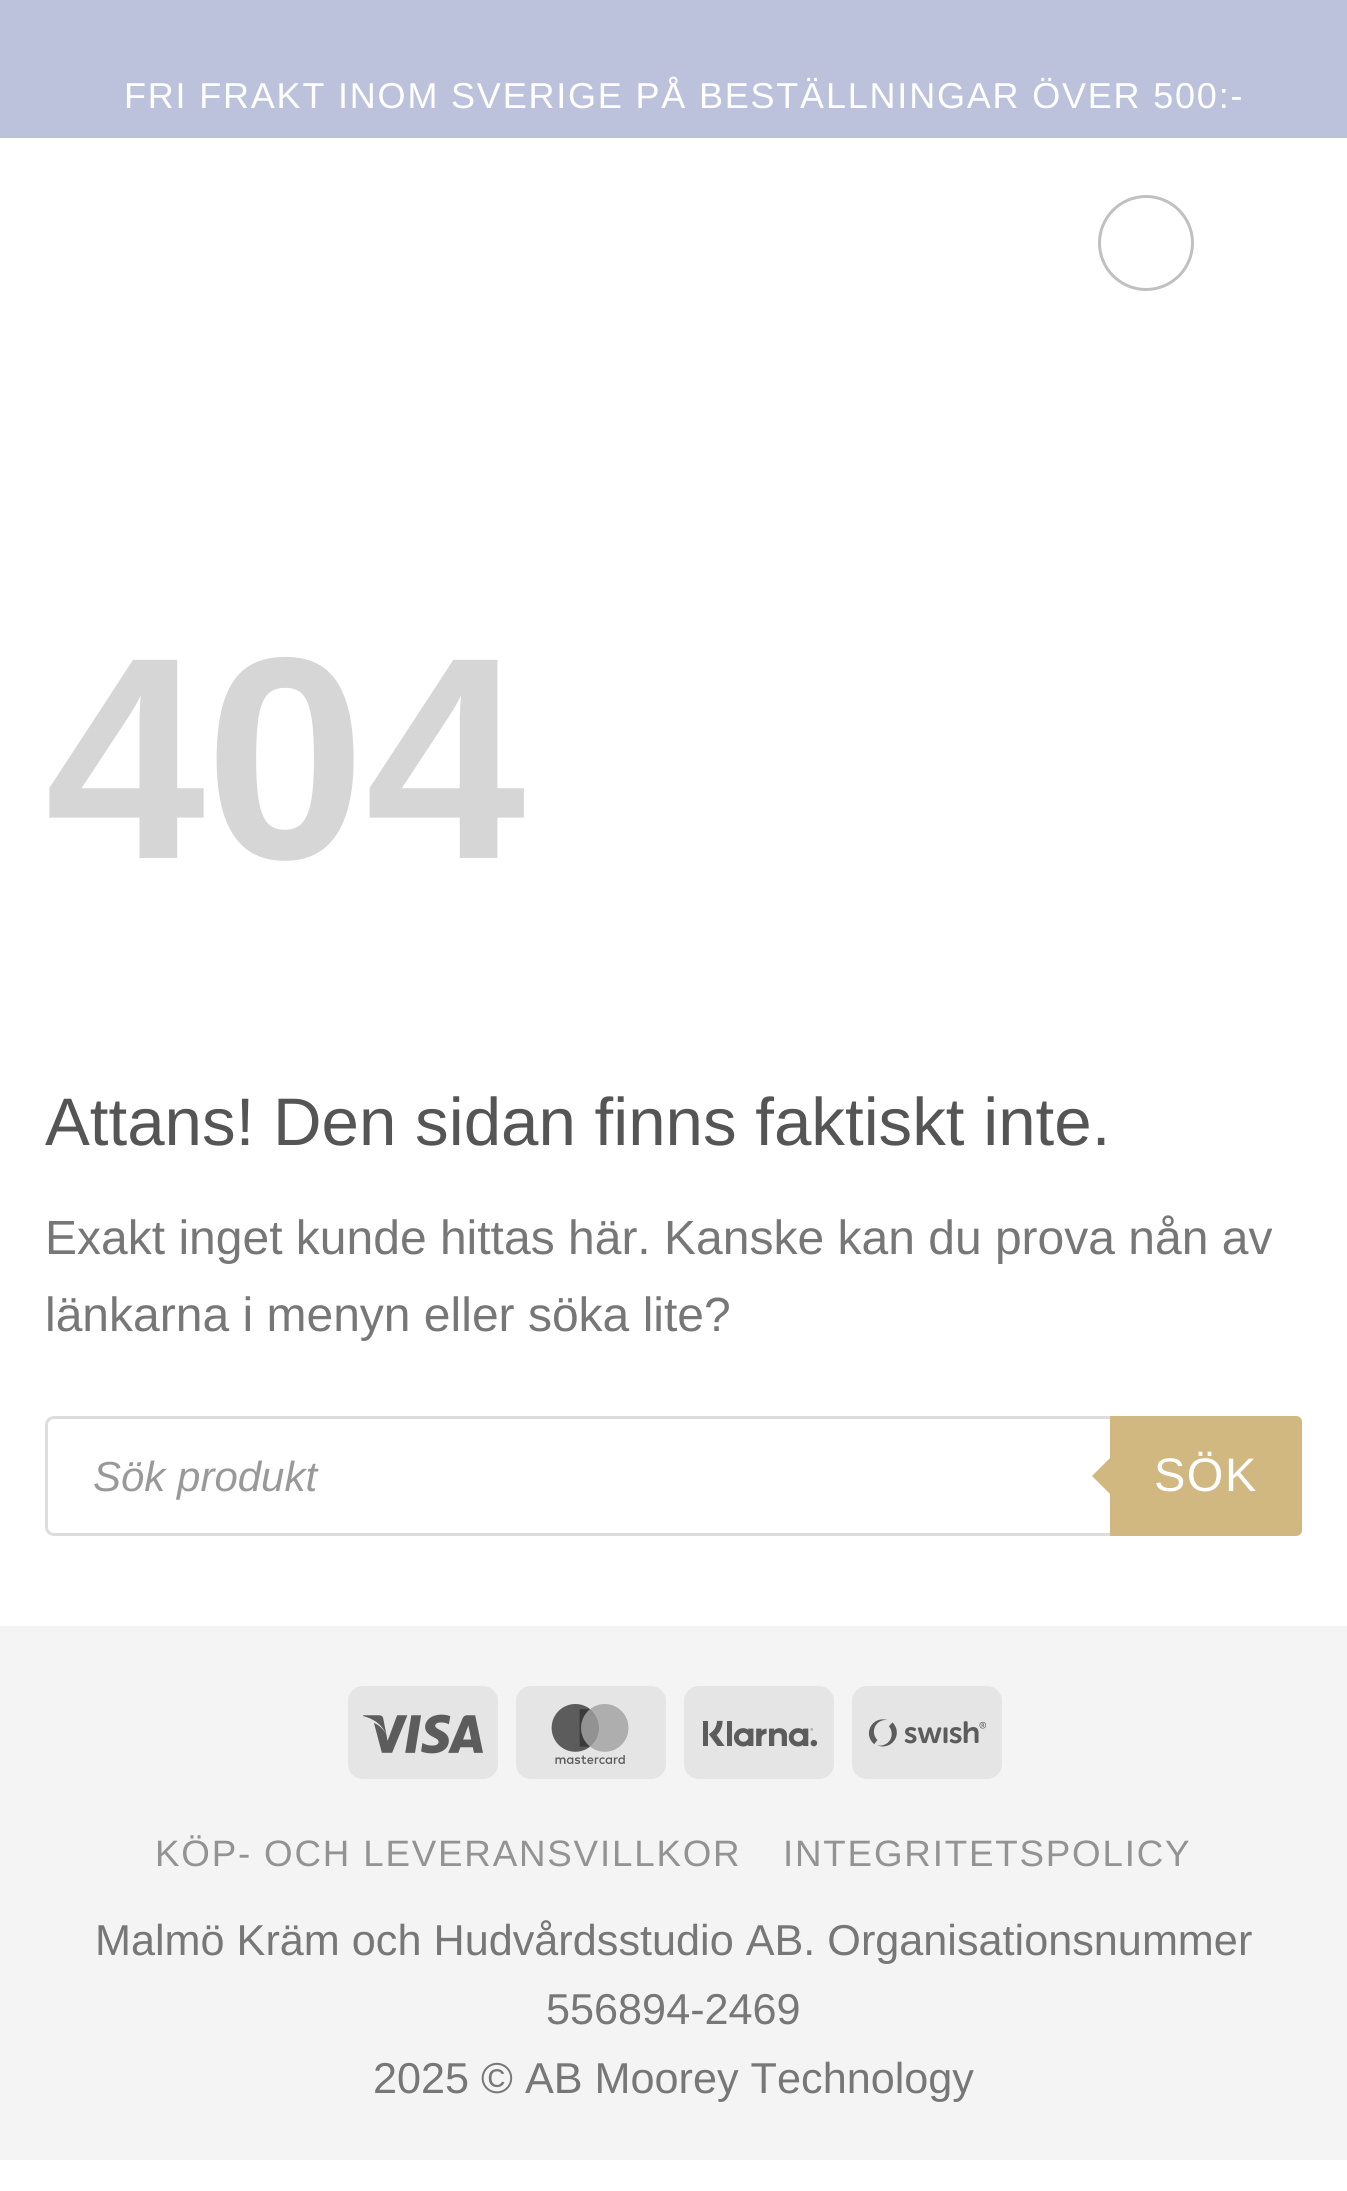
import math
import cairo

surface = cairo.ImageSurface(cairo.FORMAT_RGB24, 1347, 2191)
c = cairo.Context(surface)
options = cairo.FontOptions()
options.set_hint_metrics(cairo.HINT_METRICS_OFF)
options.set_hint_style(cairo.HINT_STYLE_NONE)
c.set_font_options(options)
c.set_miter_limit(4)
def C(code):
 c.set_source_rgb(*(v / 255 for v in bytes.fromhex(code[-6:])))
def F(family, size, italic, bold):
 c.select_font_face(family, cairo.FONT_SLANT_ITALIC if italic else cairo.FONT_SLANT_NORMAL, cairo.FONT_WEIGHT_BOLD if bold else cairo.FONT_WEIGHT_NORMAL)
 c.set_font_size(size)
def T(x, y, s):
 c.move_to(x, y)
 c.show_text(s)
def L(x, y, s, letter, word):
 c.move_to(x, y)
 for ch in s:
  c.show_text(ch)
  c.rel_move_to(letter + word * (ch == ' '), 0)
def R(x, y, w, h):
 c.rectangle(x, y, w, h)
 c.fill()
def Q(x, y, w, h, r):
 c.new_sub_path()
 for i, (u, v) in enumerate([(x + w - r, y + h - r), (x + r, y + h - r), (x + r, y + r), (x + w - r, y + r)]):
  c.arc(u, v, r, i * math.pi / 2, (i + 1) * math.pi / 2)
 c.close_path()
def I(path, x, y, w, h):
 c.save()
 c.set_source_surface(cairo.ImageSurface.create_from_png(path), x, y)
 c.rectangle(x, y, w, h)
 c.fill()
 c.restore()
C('ffffff')
c.paint()
C('bcc2db')
R(0,0,1347,138)
F('Liberation Sans',36,0,0)
C('ffffff')
L(124,108,'FRI FRAKT INOM SVERIGE PÅ BESTÄLLNINGAR ÖVER 500:-',1.8,0)
c.new_path()
c.arc(1146,243,46.5,0,2 * math.pi)
C('c0c0c0')
c.set_line_width(3)
c.stroke()
F('Liberation Sans',288,0,1)
C('d6d6d6')
T(45,858,'404')
F('Liberation Sans',67.25,0,0)
C('555555')
T(45,1145,'Attans! Den sidan finns faktiskt inte.')
F('Liberation Sans',48,0,0)
C('777777')
T(45,1254,'Exakt inget kunde hittas här. Kanske kan du prova nån av')
T(45,1331,'länkarna i menyn eller söka lite?')
Q(46.5,1417.5,1254,117,7.5)
C('dddddd')
c.stroke()
F('Liberation Sans',42,1,0)
C('999999')
T(93,1491,'Sök produkt')
C('d1b780')
c.new_path()
c.move_to(1110,1416)
c.line_to(1296,1416)
c.curve_to(1299.5,1416,1302,1418.5,1302,1422)
c.line_to(1302,1530)
c.curve_to(1302,1533.5,1299.5,1536,1296,1536)
c.line_to(1110,1536)
c.close_path()
c.fill()
c.new_path()
c.move_to(1116,1452)
c.line_to(1116,1500)
c.line_to(1092,1476)
c.close_path()
c.fill()
F('Liberation Sans',47,0,0)
C('ffffff')
L(1154,1491,'SÖK',1.5,0)
C('f4f4f4')
R(0,1626,1347,534)
C('e5e5e5')
Q(348,1686,150,93,15)
c.fill()
I('1.png',363,1714,120,40)
Q(516,1686,150,93,15)
c.fill()
I('2.png',551,1704,78,60)
Q(684,1686,150,93,15)
c.fill()
I('3.png',703,1720,115,27)
Q(852,1686,150,93,15)
c.fill()
I('4.png',868,1719,118,28)
F('Liberation Sans',36.75,0,0)
C('939393')
L(155,1866,'KÖP- OCH LEVERANSVILLKOR',1.8,0)
L(783,1866,'INTEGRITETSPOLICY',1.8,0)
F('Liberation Sans',43.2,0,0)
C('777777')
T(95,1955,'Malmö Kräm och Hudvårdsstudio AB. Organisationsnummer')
T(546,2024,'556894-2469')
T(373,2093,'2025 © AB Moorey Technology')
surface.write_to_png('o.png')
